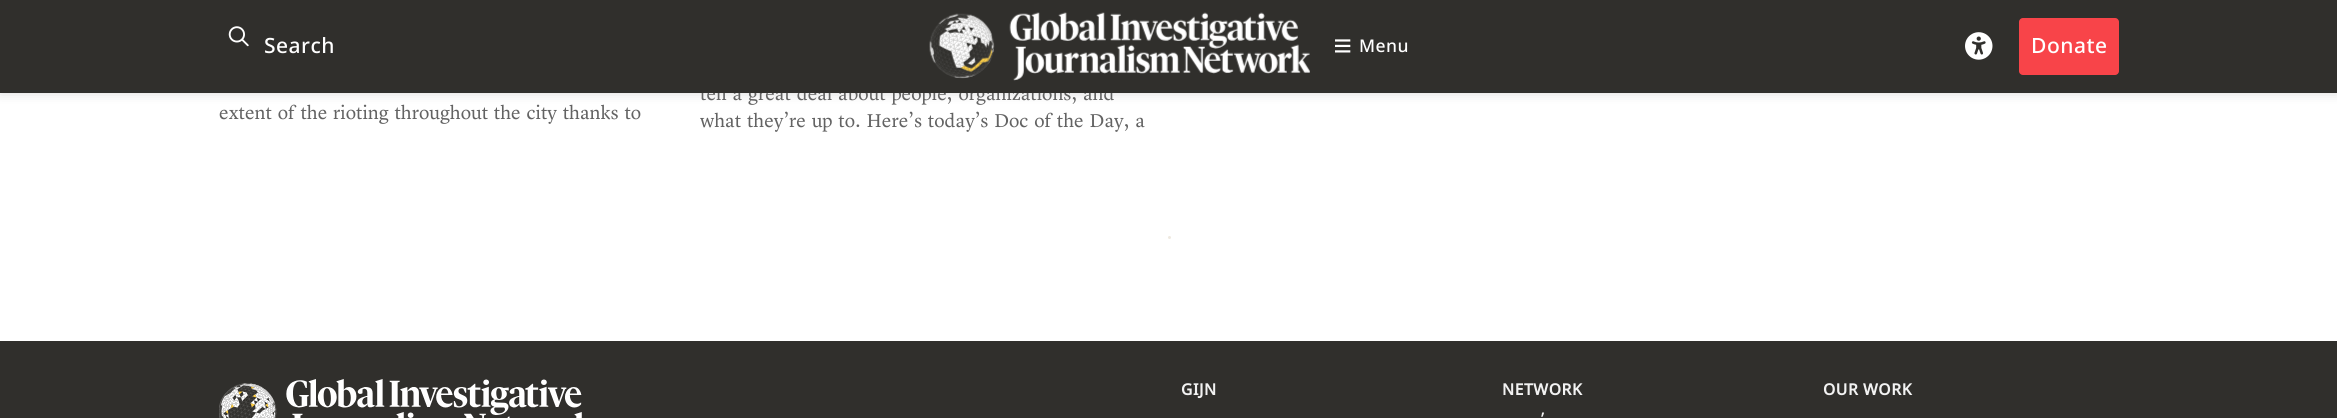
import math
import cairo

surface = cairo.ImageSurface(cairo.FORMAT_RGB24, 2337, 418)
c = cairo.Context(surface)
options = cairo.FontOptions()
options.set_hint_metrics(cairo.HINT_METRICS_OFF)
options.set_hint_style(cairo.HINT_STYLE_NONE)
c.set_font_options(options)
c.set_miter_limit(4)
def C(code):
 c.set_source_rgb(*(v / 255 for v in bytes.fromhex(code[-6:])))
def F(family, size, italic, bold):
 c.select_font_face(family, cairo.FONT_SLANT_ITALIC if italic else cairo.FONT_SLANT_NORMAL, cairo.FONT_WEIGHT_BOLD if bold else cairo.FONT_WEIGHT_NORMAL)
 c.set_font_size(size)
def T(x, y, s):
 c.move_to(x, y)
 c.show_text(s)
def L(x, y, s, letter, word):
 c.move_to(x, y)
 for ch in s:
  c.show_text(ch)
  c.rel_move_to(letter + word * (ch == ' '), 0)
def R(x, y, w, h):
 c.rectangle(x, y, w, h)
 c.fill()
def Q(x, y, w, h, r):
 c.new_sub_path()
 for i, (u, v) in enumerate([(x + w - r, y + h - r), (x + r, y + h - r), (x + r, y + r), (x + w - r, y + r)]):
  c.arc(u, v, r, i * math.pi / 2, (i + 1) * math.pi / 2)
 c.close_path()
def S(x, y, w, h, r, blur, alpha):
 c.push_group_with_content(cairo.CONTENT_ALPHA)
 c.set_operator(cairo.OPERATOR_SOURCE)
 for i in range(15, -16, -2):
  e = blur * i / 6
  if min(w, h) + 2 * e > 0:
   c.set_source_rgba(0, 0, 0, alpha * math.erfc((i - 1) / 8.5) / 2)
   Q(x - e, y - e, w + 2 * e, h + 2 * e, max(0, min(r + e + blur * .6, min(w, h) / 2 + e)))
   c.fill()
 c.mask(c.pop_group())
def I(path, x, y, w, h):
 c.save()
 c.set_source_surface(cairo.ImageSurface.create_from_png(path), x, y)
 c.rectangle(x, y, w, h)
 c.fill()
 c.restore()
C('ffffff')
c.paint()
C('000000')
S(0,0,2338,93,0,6,.15)
F('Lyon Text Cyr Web',19.25,0,0)
C('636363')
T(700,100,'tell a great deal about people, organizations, and')
C('302f2c')
R(0,0,2337,93)
I('1.png',228,26,21,21)
F('Noto Sans Arabic Medium',21,0,0)
C('ffffff')
L(264,53,'Search',.5,0)
I('2.png',929,13,66,66)
I('3.png',1009,12,301,69)
I('4.png',1335,39,16,14)
F('Noto Sans Arabic Medium',17.5,0,0)
L(1359,52,'Menu',.5,0)
I('5.png',1965,32,28,28)
C('f84449')
Q(2019,18,100,57,4)
c.fill()
F('Noto Sans Arabic Medium',21,0,0)
C('ffffff')
L(2031,53,'Donate',.5,0)
F('Lyon Text Cyr Web',19.25,0,0)
C('636363')
T(219,119,'extent of the rioting throughout the city thanks to')
T(700,127,'what they’re up to. Here’s today’s Doc of the Day, a')
C('eee9e0')
c.new_path()
c.arc(1169.5,237.5,1.5,0,2 * math.pi)
c.fill()
C('302f2c')
R(0,341,2337,77)
I('6.png',219,379,363,39)
F('Noto Sans Arabic',15.75,0,1)
C('f2f2f2')
L(1181,395,'GIJN',.5,0)
L(1502,395,'NETWORK',.5,0)
F('Noto Sans Arabic Medium',17.5,0,0)
L(1541,425,'’',.5,0)
F('Noto Sans Arabic',15.75,0,1)
L(1823,395,'OUR WORK',.5,0)
surface.write_to_png('o.png')
